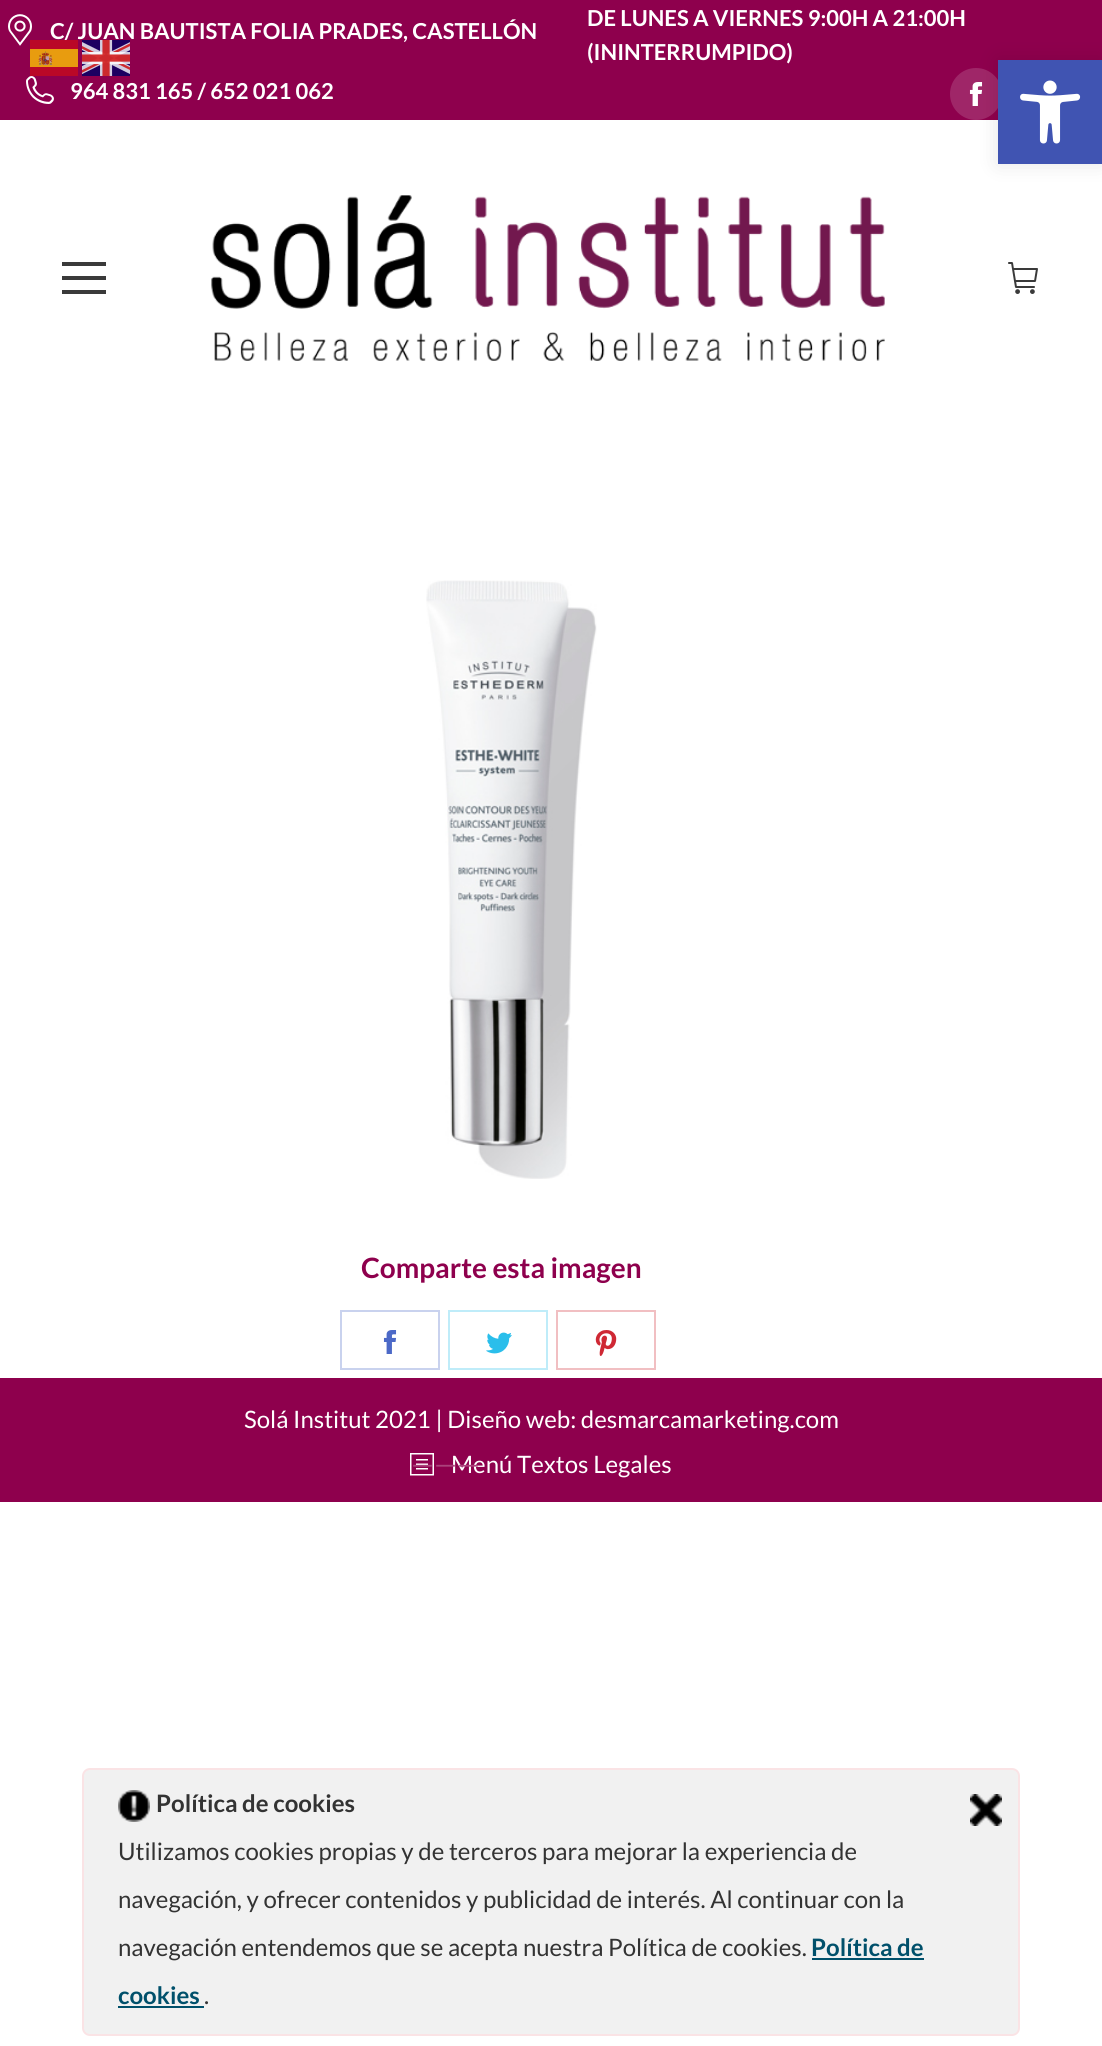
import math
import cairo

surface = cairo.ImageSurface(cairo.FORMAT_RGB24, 1102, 2046)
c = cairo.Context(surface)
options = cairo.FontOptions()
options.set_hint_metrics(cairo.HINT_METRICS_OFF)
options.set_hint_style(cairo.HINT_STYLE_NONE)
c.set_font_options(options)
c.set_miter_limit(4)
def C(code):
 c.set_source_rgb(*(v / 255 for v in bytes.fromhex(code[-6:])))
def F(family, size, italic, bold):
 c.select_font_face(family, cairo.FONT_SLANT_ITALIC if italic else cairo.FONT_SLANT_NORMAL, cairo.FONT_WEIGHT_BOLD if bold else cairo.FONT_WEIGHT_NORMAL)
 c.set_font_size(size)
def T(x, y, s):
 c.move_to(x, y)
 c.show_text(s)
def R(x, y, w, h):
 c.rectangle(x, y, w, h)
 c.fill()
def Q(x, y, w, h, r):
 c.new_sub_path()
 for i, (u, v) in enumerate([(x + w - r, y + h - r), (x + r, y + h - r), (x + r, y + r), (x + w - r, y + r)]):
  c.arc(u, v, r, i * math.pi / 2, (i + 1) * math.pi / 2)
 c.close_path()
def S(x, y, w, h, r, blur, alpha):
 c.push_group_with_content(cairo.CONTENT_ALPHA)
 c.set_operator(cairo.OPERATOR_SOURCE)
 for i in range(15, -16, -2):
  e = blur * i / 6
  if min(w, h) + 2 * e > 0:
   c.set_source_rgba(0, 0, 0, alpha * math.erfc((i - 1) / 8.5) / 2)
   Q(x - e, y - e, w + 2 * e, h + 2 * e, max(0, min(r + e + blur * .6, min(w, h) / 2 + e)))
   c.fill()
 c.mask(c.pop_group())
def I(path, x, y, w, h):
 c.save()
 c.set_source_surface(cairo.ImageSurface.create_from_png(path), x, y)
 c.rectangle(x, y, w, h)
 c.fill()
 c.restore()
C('ffffff')
c.paint()
C('8e004d')
R(0,0,1102,120)
I('1.png',8,14,24,32)
F('Lato',22,0,1)
C('ffffff')
T(50,39,'C/ JUAN BAUTISTA FOLIA PRADES, CASTELLÓN')
I('2.png',26,76,28,28)
T(70,99,'964 831 165 / 652 021 062')
T(587,26,'DE LUNES A VIERNES 9:00H A 21:00H')
T(587,60,'(ININTERRUMPIDO)')
C('9f2668')
c.new_path()
c.arc(976,94,26,0,2 * math.pi)
c.fill()
I('3.png',969,82,14,24)
C('3a3a3a')
R(62,262,44,4)
R(62,276,44,4)
R(62,290,44,4)
I('4.png',211,195,674,166)
I('5.png',1008,262,30,32)
I('6.png',426,580,171,599)
F('Lato',28,0,1)
C('8e004d')
T(361,1278,'Comparte esta imagen')
c.rectangle(341,1311,98,58)
C('c9d2ee')
c.stroke()
I('7.png',383,1330,14,24)
c.rectangle(449,1311,98,58)
C('bfecf9')
c.stroke()
I('8.png',486,1332,26,22)
c.rectangle(557,1311,98,58)
C('f1bfc2')
c.stroke()
I('9.png',595,1330,22,26)
C('8e004d')
R(0,1378,1102,124)
F('Lato',24,0,0)
C('ffffff')
T(244,1428,'Solá Institut 2021 | Diseño web: desmarcamarketing.com')
I('10.png',410,1453,24,23)
T(451,1473,'Menú Textos Legales')
F('Lato',28,0,0)
C('ab427b')
T(411,1474,'———')
C('000000')
S(998,60,104,104,0,10,.1)
C('4054b2')
R(998,60,104,104)
I('11.png',1020,80,61,64)
I('12.png',30,40,48,36)
I('13.png',82,40,48,36)
C('f1f1f1')
Q(83,1769,936,266,7)
c.fill_preserve()
C('fae3e5')
c.stroke()
I('14.png',118,1790,32,32)
F('Lato',24,0,1)
C('333333')
T(156,1812,'Política de cookies')
I('15.png',970,1794,32,32)
F('Lato',24,0,0)
T(118,1860,'Utilizamos cookies propias y de terceros para mejorar la experiencia de')
T(118,1908,'navegación, y ofrecer contenidos y publicidad de interés. Al continuar con la')
T(118,1956,'navegación entendemos que se acepta nuestra Política de cookies.')
F('Lato',24,0,1)
C('00506b')
T(811,1956,'Política de')
R(812,1958,112,2)
T(118,2004,'cookies')
R(118,2006,86,2)
F('Lato',24,0,0)
C('333333')
T(204,2004,'.')
surface.write_to_png('o.png')
